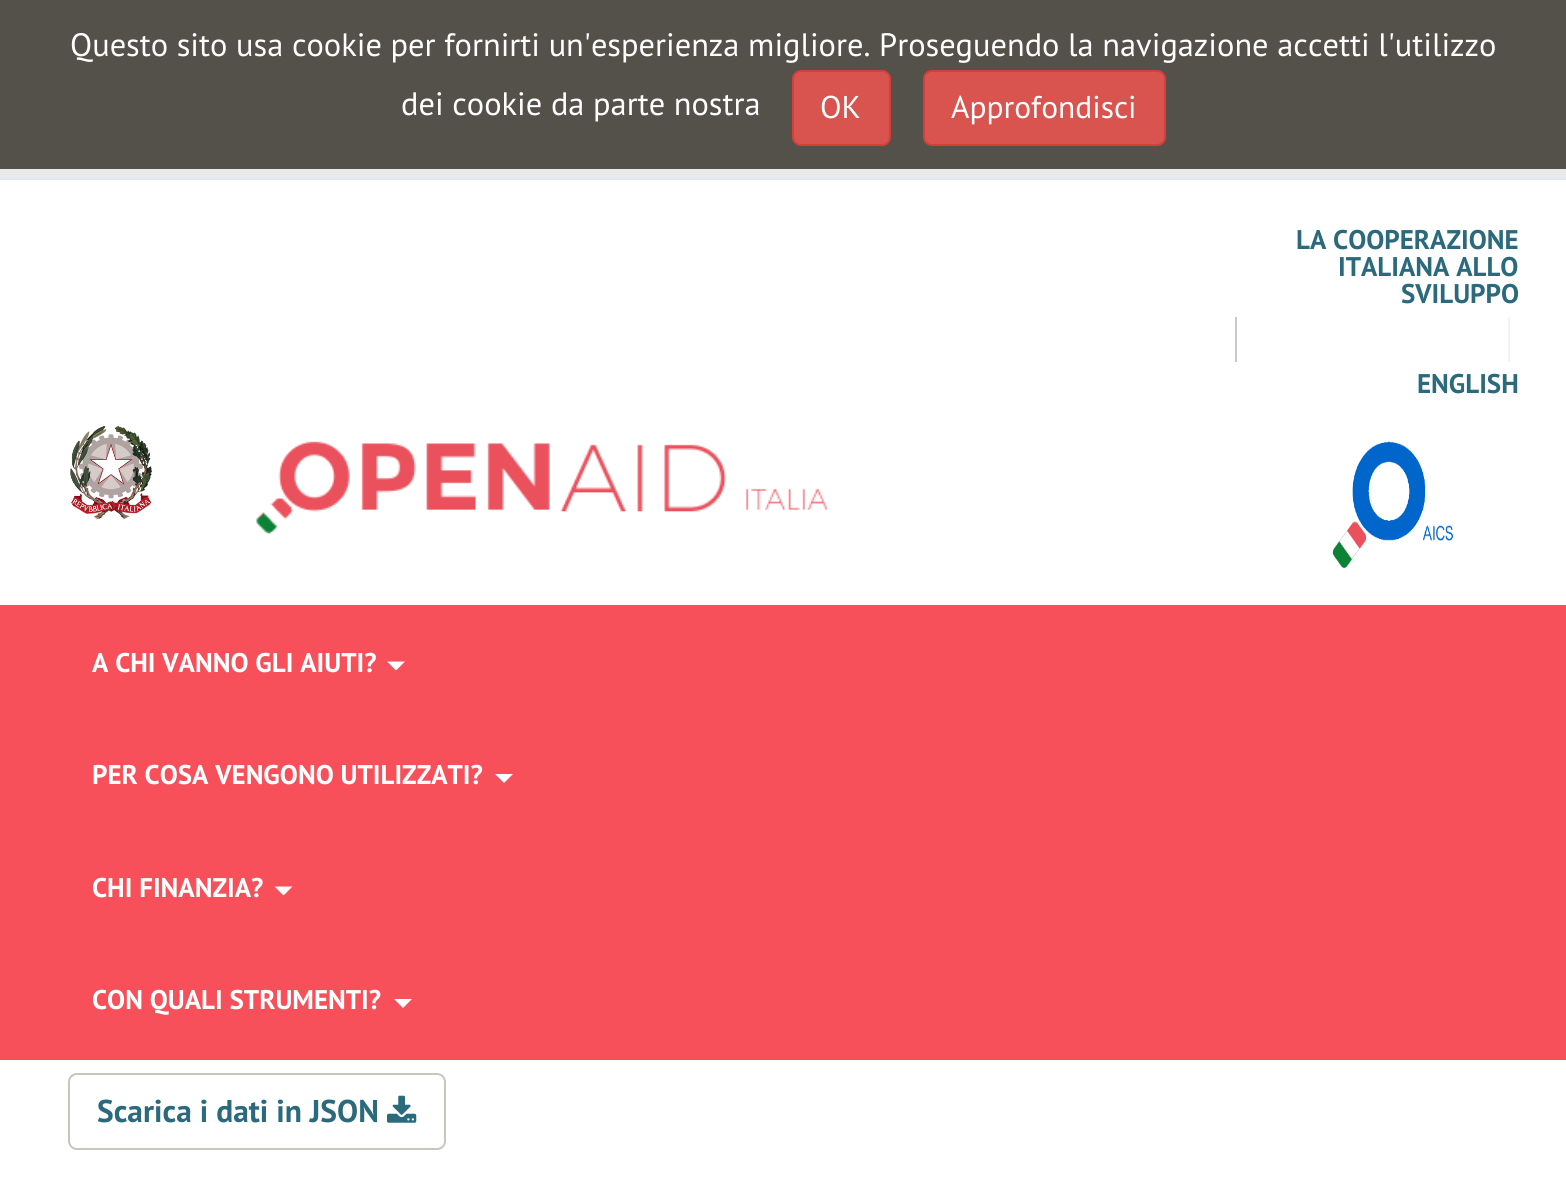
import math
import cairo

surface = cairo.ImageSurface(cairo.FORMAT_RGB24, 1566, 1194)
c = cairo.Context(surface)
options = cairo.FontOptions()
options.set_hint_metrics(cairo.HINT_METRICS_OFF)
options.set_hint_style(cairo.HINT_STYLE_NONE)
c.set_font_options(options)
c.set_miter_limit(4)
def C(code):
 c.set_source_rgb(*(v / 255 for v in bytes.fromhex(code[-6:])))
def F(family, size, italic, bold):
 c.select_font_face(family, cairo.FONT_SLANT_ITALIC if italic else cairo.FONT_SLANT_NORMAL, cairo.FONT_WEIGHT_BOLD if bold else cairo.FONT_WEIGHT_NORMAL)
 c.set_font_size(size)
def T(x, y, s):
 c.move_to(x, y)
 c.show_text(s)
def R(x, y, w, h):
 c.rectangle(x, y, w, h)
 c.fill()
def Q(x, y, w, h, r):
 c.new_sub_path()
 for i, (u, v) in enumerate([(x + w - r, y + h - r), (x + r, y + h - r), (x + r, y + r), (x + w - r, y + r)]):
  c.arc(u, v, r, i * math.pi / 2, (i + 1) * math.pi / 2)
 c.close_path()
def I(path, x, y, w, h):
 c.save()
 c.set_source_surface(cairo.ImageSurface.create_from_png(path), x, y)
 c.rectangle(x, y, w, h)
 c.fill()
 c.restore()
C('ffffff')
c.paint()
C('54514a')
R(0,0,1566,169)
F('PT Sans',32.4,0,0)
C('ffffff')
T(70,56,'Questo sito usa cookie per fornirti un\'esperienza migliore. Proseguendo la navigazione accetti l\'utilizzo')
T(401,115,'dei cookie da parte nostra')
C('d9534f')
Q(793,71,97,74,8)
c.fill_preserve()
C('d43f3a')
c.stroke()
F('PT Sans',31.5,0,0)
C('ffffff')
T(820,118,'OK')
C('d9534f')
Q(924,71,241,74,8)
c.fill_preserve()
C('d43f3a')
c.stroke()
C('ffffff')
T(951,118,'Approfondisci')
C('eaeaea')
R(0,169,1566,9)
C('dce7fb')
R(0,178,1566,2)
F('PT Sans',27,0,1)
C('2b6a7c')
T(1296,249,'LA COOPERAZIONE')
T(1338,276,'ITALIANA ALLO')
T(1401,303,'SVILUPPO')
C('f2f2f2')
R(1508,317,2,45)
C('c9c9c9')
R(1235,317,2,45)
C('2b6a7c')
T(1417,393,'ENGLISH')
I('1.png',70,426,82,93)
I('2.png',256,441,573,93)
I('3.png',1332,441,121,128)
C('f7505a')
R(0,605,1566,455)
C('ffffff')
T(92,672,'A CHI VANNO GLI AIUTI?')
c.new_path()
c.move_to(387,661.5)
c.line_to(405,661.5)
c.line_to(396,670.5)
c.close_path()
c.fill()
T(92,784,'PER COSA VENGONO UTILIZZATI?')
c.new_path()
c.move_to(495,774)
c.line_to(513,774)
c.line_to(504,783)
c.close_path()
c.fill()
T(92,897,'CHI FINANZIA?')
c.new_path()
c.move_to(274.5,886.5)
c.line_to(292.5,886.5)
c.line_to(283.5,895.5)
c.close_path()
c.fill()
T(92,1009,'CON QUALI STRUMENTI?')
c.new_path()
c.move_to(394,999)
c.line_to(412,999)
c.line_to(403,1008)
c.close_path()
c.fill()
Q(69,1074,376,75,8)
C('c9c5bd')
c.stroke()
F('PT Sans',31.5,0,1)
C('2b6a7c')
T(97,1122,'Scarica i dati in JSON')
I('4.png',387,1095,30,28)
surface.write_to_png('o.png')
